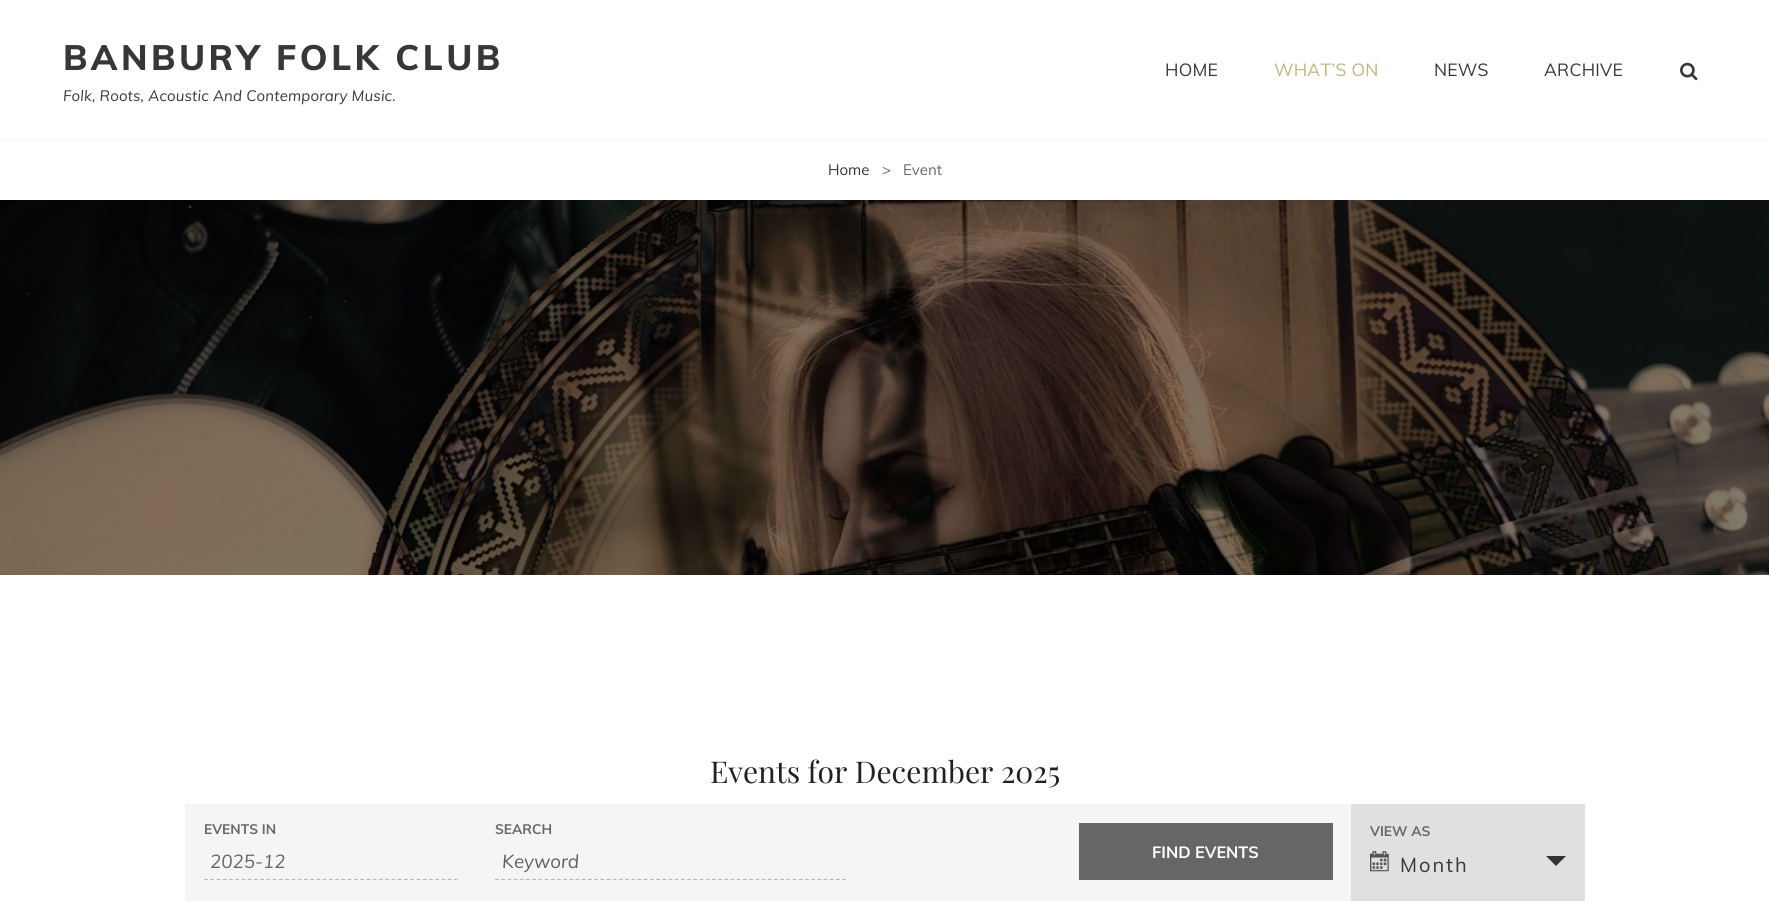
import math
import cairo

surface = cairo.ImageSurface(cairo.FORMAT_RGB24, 1769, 916)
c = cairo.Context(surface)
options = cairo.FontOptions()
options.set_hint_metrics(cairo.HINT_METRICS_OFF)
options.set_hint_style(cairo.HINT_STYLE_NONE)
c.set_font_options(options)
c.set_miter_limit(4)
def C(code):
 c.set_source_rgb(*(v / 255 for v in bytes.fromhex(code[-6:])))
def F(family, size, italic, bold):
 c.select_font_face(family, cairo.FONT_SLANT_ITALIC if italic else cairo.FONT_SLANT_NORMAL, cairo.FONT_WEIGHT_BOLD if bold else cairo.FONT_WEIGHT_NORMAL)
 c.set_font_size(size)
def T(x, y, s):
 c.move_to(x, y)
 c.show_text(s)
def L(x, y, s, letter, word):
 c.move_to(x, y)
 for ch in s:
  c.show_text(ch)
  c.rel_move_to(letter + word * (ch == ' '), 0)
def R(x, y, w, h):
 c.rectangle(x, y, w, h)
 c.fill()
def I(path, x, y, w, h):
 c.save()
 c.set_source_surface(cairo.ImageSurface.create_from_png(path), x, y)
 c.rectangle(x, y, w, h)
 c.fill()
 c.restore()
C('ffffff')
c.paint()
C('f4f4f4')
R(0,140,1769,1)
F('Muli ExtraBold',35,0,0)
C('373737')
L(63,70,'BANBURY FOLK CLUB',3.5,0)
F('Muli',15,1,0)
L(63,101,'Folk, Roots, Acoustic And Contemporary Music.',.15,0)
F('Muli',17.5,0,0)
L(1165,76,'HOME',.25,0)
C('c0b283')
L(1274,76,'WHAT’S ON',.25,0)
C('373737')
L(1434,76,'NEWS',.25,0)
L(1544,76,'ARCHIVE',.25,0)
I('1.png',1680,62,18,19)
F('Muli',15,0,0)
T(828,175,'Home')
C('676767')
T(882,175,'>')
T(903,175,'Event')
I('2.png',0,200,1769,375)
F('Playfair Display',30,0,0)
C('212121')
T(710,783,'Events for December 2025')
C('f5f5f5')
R(185,804,1166,97)
F('Muli',13.75,0,1)
C('676767')
T(204,834,'EVENTS IN')
c.new_path()
c.move_to(204,879.5)
c.line_to(457.5,879.5)
C('b9b9b9')
c.set_line_width(1.2)
c.set_dash([3.75,2.5])
c.stroke()
F('Muli',18.75,1,0)
C('676767')
T(210,868,'2025-12')
F('Muli',13.75,0,1)
T(495,834,'SEARCH')
c.new_path()
c.move_to(495,879.5)
c.line_to(846,879.5)
C('b9b9b9')
c.set_dash([3.75,2.45])
c.stroke()
F('Muli',18.75,1,0)
C('5f5f5f')
T(502,868,'Keyword')
C('666666')
R(1079,823,254,57)
F('Muli',16.25,0,1)
C('ffffff')
T(1152,858,'FIND EVENTS')
C('e0e0e0')
R(1351,804,234,97)
F('Muli',13.75,0,1)
C('676767')
T(1370,836,'VIEW AS')
I('3.png',1370,851,19,21)
F('Muli',20,0,0)
C('373737')
L(1400,872,'Month',2,0)
C('333333')
c.new_path()
c.move_to(1546,856)
c.line_to(1566,856)
c.line_to(1556,866)
c.close_path()
c.fill()
surface.write_to_png('o.png')
